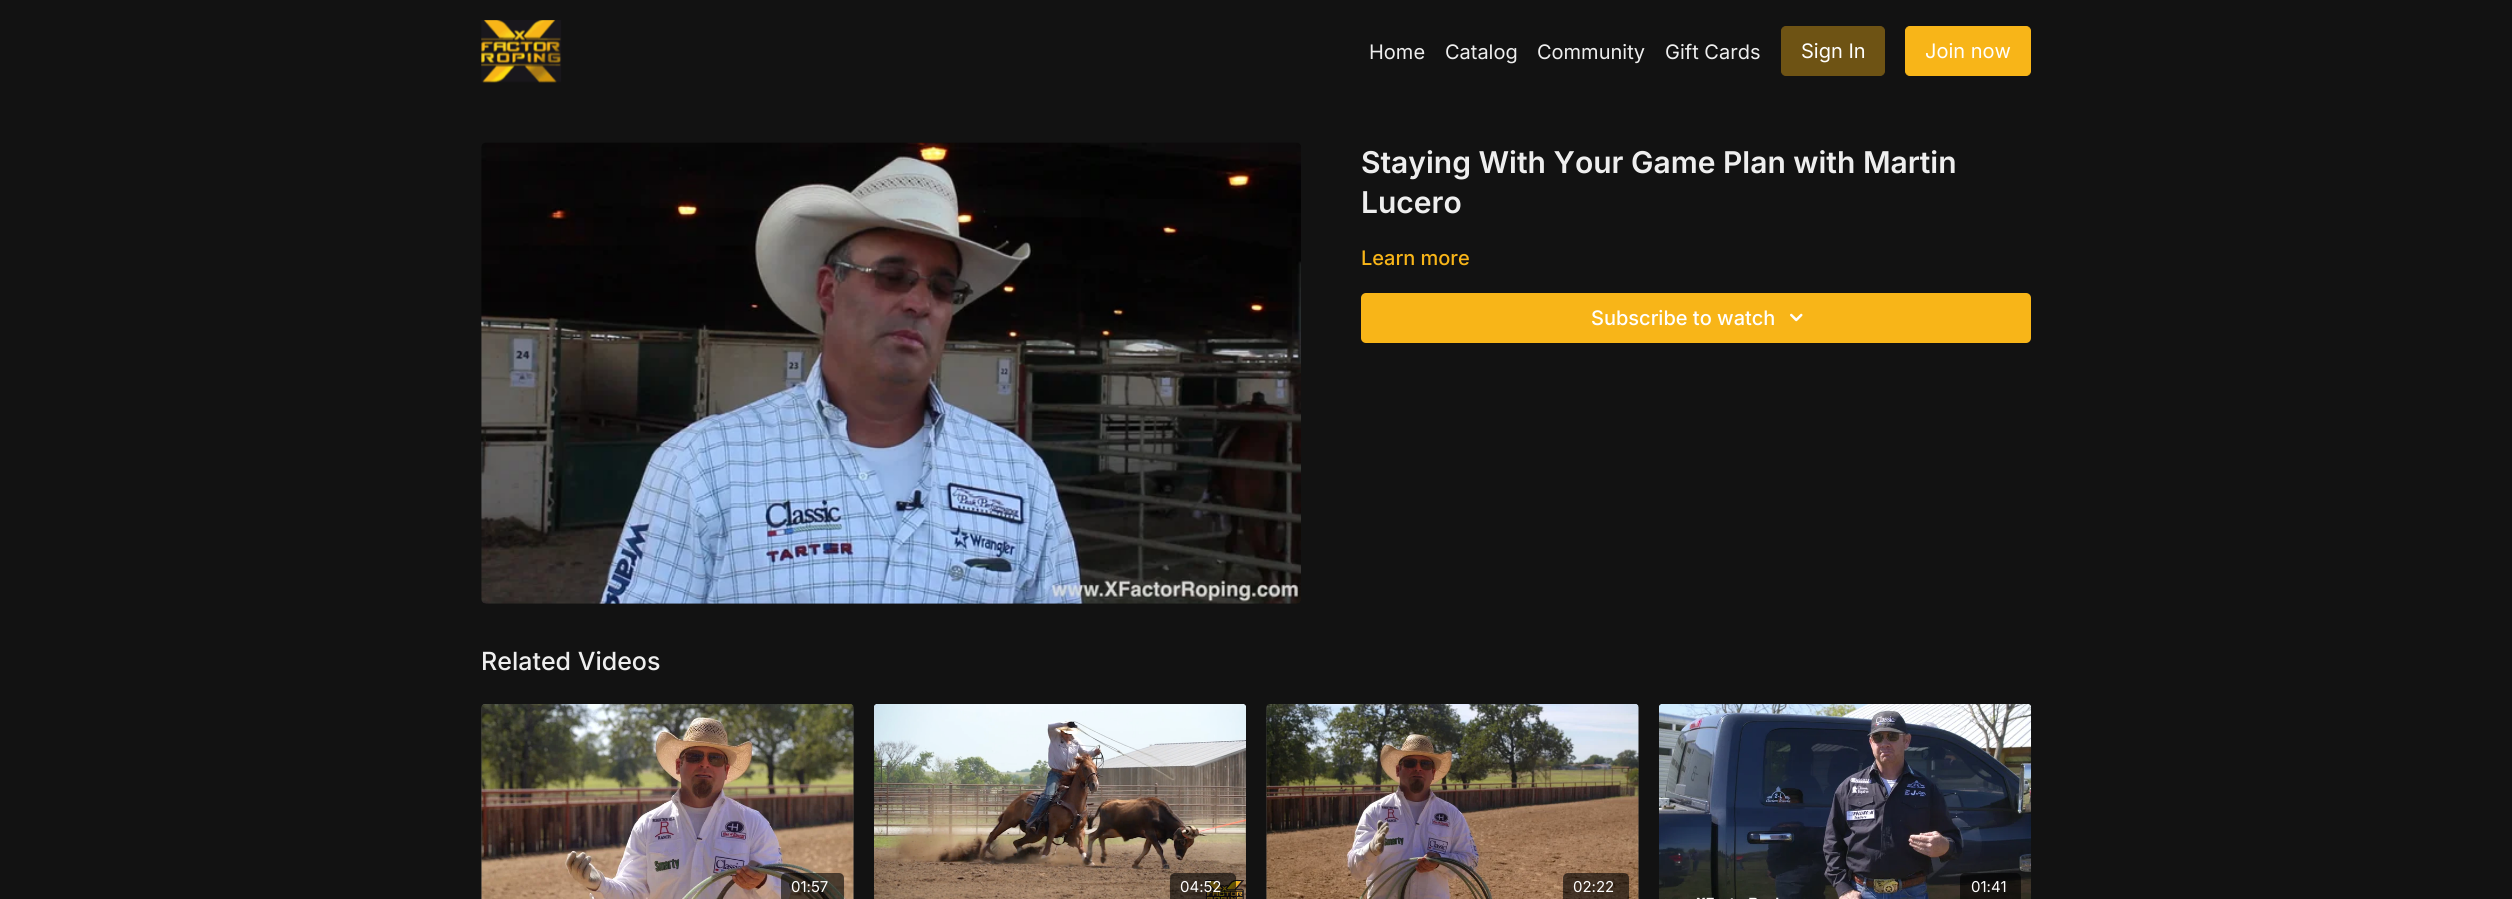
import math
import cairo

surface = cairo.ImageSurface(cairo.FORMAT_RGB24, 2512, 899)
c = cairo.Context(surface)
options = cairo.FontOptions()
options.set_hint_metrics(cairo.HINT_METRICS_OFF)
options.set_hint_style(cairo.HINT_STYLE_NONE)
c.set_font_options(options)
c.set_miter_limit(4)
def C(code):
 c.set_source_rgb(*(v / 255 for v in bytes.fromhex(code[-6:])))
def F(family, size, italic, bold):
 c.select_font_face(family, cairo.FONT_SLANT_ITALIC if italic else cairo.FONT_SLANT_NORMAL, cairo.FONT_WEIGHT_BOLD if bold else cairo.FONT_WEIGHT_NORMAL)
 c.set_font_size(size)
def T(x, y, s):
 c.move_to(x, y)
 c.show_text(s)
def Q(x, y, w, h, r):
 c.new_sub_path()
 for i, (u, v) in enumerate([(x + w - r, y + h - r), (x + r, y + h - r), (x + r, y + r), (x + w - r, y + r)]):
  c.arc(u, v, r, i * math.pi / 2, (i + 1) * math.pi / 2)
 c.close_path()
def I(path, x, y, w, h):
 c.save()
 c.set_source_surface(cairo.ImageSurface.create_from_png(path), x, y)
 c.rectangle(x, y, w, h)
 c.fill()
 c.restore()
C('121212')
c.paint()
I('1.png',481,20,81,63)
F('Inter',20,0,0)
C('eeeeee')
T(1369,59,'Home')
T(1445,59,'Catalog')
T(1537,59,'Community')
T(1665,59,'Gift Cards')
C('6e5314')
Q(1781.5,26.5,103,49,4.5)
c.fill_preserve()
c.set_line_width(1)
c.stroke()
C('ffffff')
T(1801,58,'Sign In')
C('f8b518')
Q(1905.5,26.5,125,49,4.5)
c.fill_preserve()
c.stroke()
C('ffffff')
T(1925,58,'Join now')
I('2.png',481,142,820,462)
F('Inter SemiBold',30,0,0)
C('eeeeee')
T(1361,173,'Staying With Your Game Plan with Martin')
T(1361,213,'Lucero')
F('Inter Medium',20,0,0)
C('f8b518')
T(1361,265,'Learn more')
Q(1361,293,670,50,5)
c.fill()
C('ffffff')
T(1591,325,'Subscribe to watch')
I('3.png',1790,313,13,9)
F('Inter Medium',25,0,0)
C('eeeeee')
T(481,670,'Related Videos')
gradient = cairo.LinearGradient(481,808,854,808)
gradient.add_color_stop_rgba(.08,0.192,0.192,0.192,1)
gradient.add_color_stop_rgba(.18,0.18,0.18,0.18,1)
gradient.add_color_stop_rgba(.33,0.173,0.173,0.173,1)
c.set_source(gradient)
Q(481,704,373,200,5)
c.fill()
I('4.png',481,704,373,195)
c.set_source_rgba(0,0,0,0.6)
Q(781,873,63,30,5)
c.fill()
F('Inter',15,0,0)
C('ffffff')
T(791,892,'01:57')
I('5.png',874,704,372,195)
c.set_source_rgba(0,0,0,0.6)
Q(1170,873,66,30,5)
c.fill()
C('ffffff')
T(1180,892,'04:52')
gradient = cairo.LinearGradient(1266,808,1639,808)
gradient.add_color_stop_rgba(.08,0.192,0.192,0.192,1)
gradient.add_color_stop_rgba(.18,0.18,0.18,0.18,1)
gradient.add_color_stop_rgba(.33,0.173,0.173,0.173,1)
c.set_source(gradient)
Q(1266,704,373,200,5)
c.fill()
I('6.png',1266,704,373,195)
c.set_source_rgba(0,0,0,0.6)
Q(1563,873,66,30,5)
c.fill()
C('ffffff')
T(1573,892,'02:22')
I('7.png',1659,704,372,195)
c.set_source_rgba(0,0,0,0.6)
Q(1960,873,61,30,5)
c.fill()
C('ffffff')
T(1971,892,'01:41')
surface.write_to_png('o.png')
